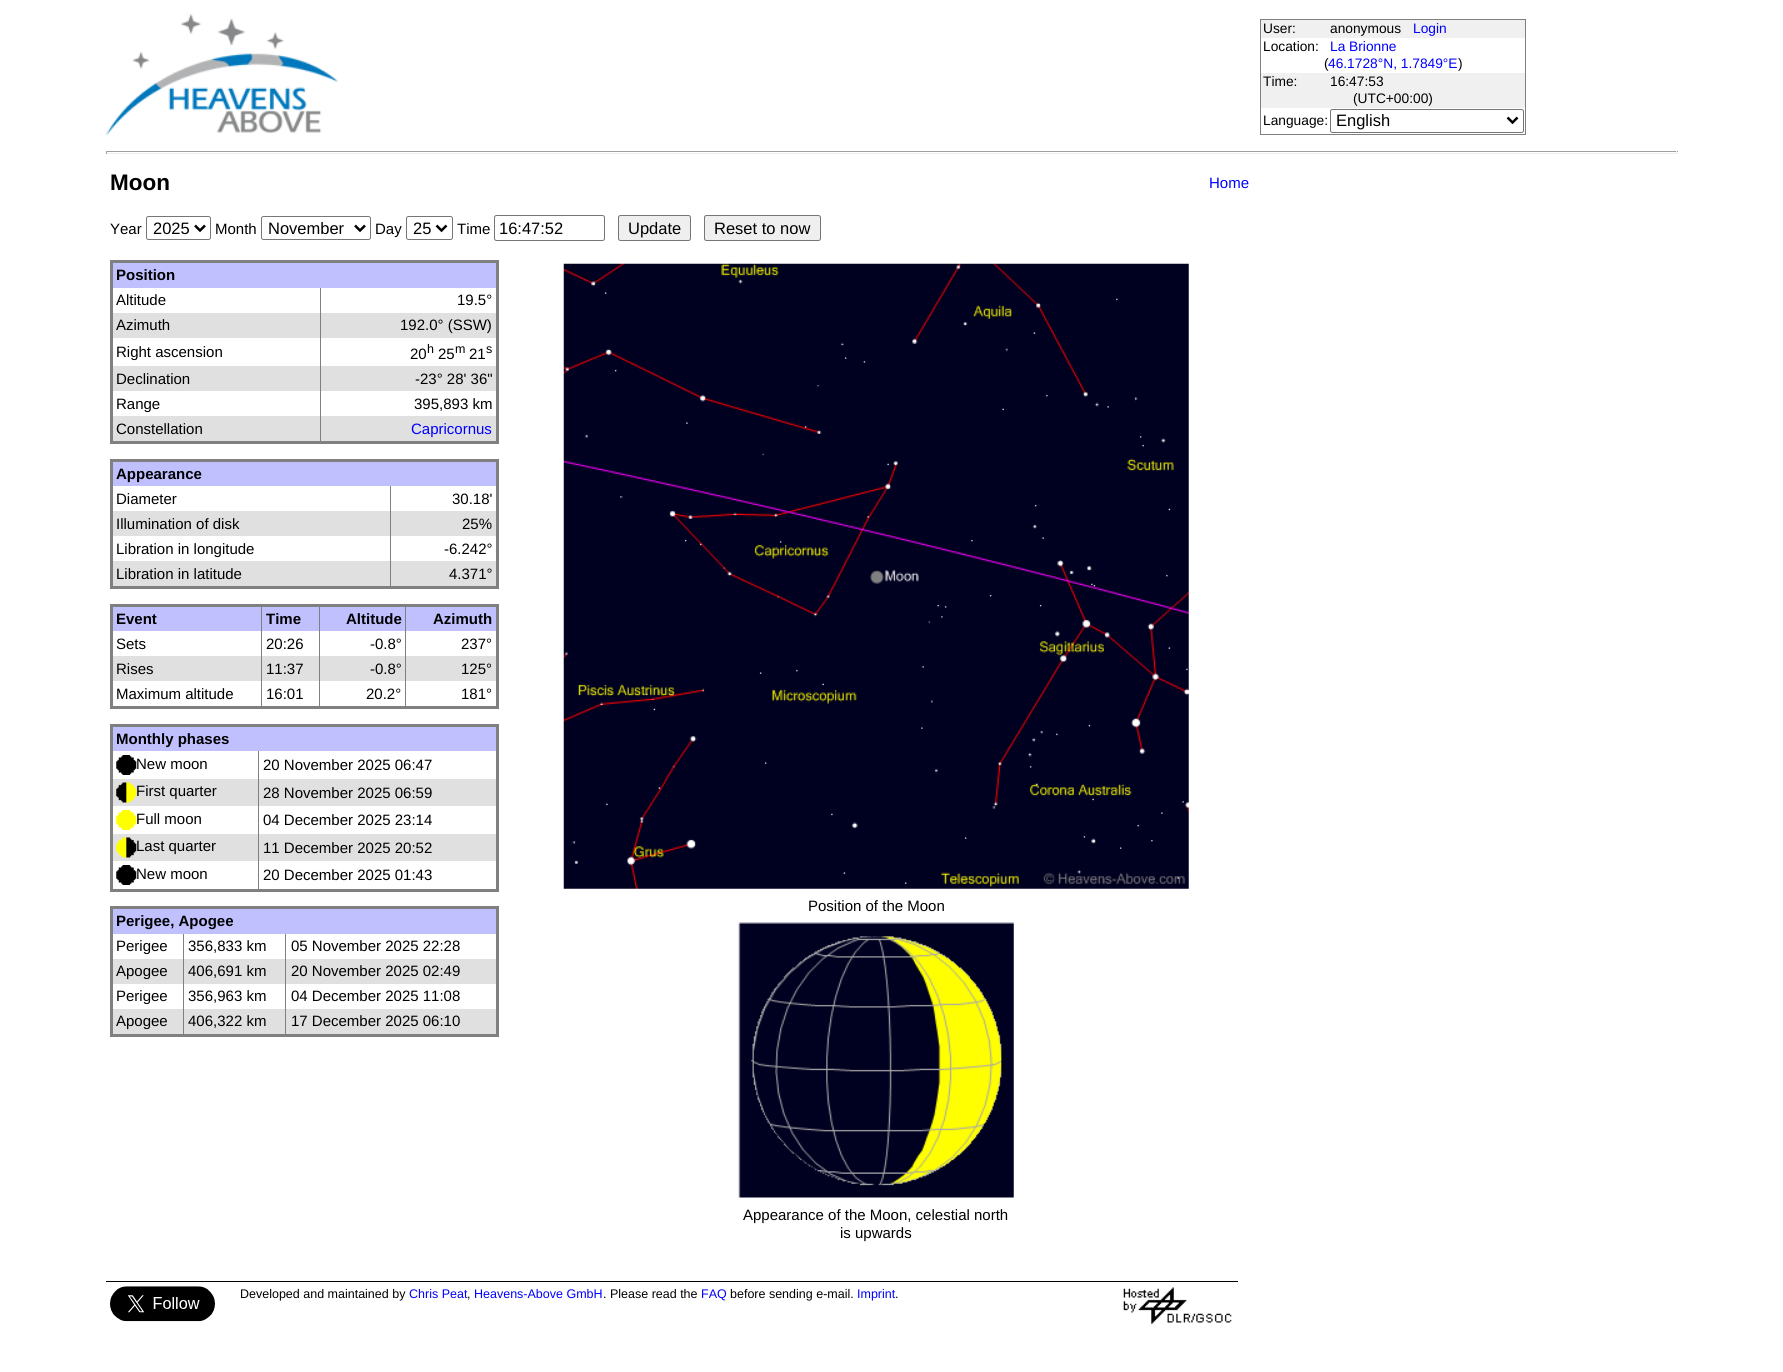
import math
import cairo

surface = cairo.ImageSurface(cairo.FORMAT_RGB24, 1783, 1372)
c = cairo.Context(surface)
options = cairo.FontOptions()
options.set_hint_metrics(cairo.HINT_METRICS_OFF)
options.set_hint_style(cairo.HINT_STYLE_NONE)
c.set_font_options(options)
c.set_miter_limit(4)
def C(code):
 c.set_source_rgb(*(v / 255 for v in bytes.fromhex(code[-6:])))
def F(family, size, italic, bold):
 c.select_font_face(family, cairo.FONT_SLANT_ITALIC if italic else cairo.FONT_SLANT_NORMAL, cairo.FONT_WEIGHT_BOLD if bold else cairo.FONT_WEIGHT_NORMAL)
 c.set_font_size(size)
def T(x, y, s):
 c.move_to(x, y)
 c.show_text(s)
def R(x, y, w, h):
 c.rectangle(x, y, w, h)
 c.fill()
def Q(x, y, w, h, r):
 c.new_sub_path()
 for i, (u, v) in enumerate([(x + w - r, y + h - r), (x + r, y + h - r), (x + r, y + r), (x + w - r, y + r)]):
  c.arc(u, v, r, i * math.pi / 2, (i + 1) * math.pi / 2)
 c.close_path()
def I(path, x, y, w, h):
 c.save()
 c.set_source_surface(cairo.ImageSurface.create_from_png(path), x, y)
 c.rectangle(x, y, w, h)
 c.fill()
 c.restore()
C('ffffff')
c.paint()
I('1.png',106,13,232,122)
C('f0f0f0')
R(1261,20,264,88)
C('808080')
R(1260,19,266,1)
R(1525,19,1,116)
R(1260,134,266,1)
R(1260,19,1,116)
F('Liberation Sans',13.75,0,0)
C('000000')
T(1263,33,'User:')
T(1330,33,'anonymous')
C('0000ff')
T(1413,33,'Login')
C('ffffff')
R(1261,38,264,35)
C('000000')
T(1263,51,'Location:')
C('0000ff')
T(1330,51,'La Brionne')
C('000000')
T(1324,68,'(')
C('0000ff')
T(1328,68,'46.1728°N, 1.7849°E')
C('000000')
T(1458,68,')')
T(1263,86,'Time:')
T(1330,86,'16:47:53')
T(1353,103,'(UTC+00:00)')
T(1263,125,'Language:')
Q(1330.5,109.5,193,23,2)
C('767676')
c.set_line_width(1)
c.stroke()
c.new_path()
c.move_to(1507.5,117.5)
c.line_to(1512.5,122.5)
c.line_to(1517.5,117.5)
C('000000')
c.set_line_width(2.5)
c.stroke()
F('Liberation Sans',16.5,0,0)
T(1336,126,'English')
C('9f9f9f')
R(106,151,1572,1)
C('eeeeee')
R(1676,151,1,3)
R(106,153,1572,1)
C('9f9f9f')
R(106,151,1,3)
F('Liberation Sans',22.5,0,1)
C('000000')
T(110,190,'Moon')
F('Liberation Sans',15,0,0)
C('0000ff')
T(1209,188,'Home')
C('000000')
T(110,234,'Year')
Q(146.5,216.5,64,23,2)
C('767676')
c.set_line_width(1)
c.stroke()
c.new_path()
c.move_to(195,225.5)
c.line_to(200,230.5)
c.line_to(205,225.5)
C('000000')
c.set_line_width(2.5)
c.stroke()
F('Liberation Sans',16.5,0,0)
T(153,234,'2025')
F('Liberation Sans',15,0,0)
T(215,234,'Month')
Q(261.5,216.5,109,23,2)
C('767676')
c.set_line_width(1)
c.stroke()
c.new_path()
c.move_to(355,225.5)
c.line_to(360,230.5)
c.line_to(365,225.5)
C('000000')
c.set_line_width(2.5)
c.stroke()
F('Liberation Sans',16.5,0,0)
T(268,234,'November')
F('Liberation Sans',15,0,0)
T(375,234,'Day')
Q(406.5,216.5,46,23,2)
C('767676')
c.set_line_width(1)
c.stroke()
c.new_path()
c.move_to(436.5,225.5)
c.line_to(441.5,230.5)
c.line_to(446.5,225.5)
C('000000')
c.set_line_width(2.5)
c.stroke()
F('Liberation Sans',16.5,0,0)
T(413,234,'25')
F('Liberation Sans',15,0,0)
T(457,234,'Time')
Q(494.5,215.5,110,25,2)
C('767676')
c.set_line_width(1)
c.stroke()
F('Liberation Sans',16.5,0,0)
C('000000')
T(499,234,'16:47:52')
C('efefef')
Q(618.5,215.5,72,25,2)
c.fill_preserve()
C('767676')
c.stroke()
C('000000')
T(628,234,'Update')
C('efefef')
Q(704.5,215.5,116,25,2)
c.fill_preserve()
C('767676')
c.stroke()
C('000000')
T(714,234,'Reset to now')
C('808080')
R(110,260,389,3)
R(496,260,3,184)
C('e0e0e0')
R(113,313,383,25)
R(113,366,383,25)
R(113,416,383,25)
C('808080')
R(320,288,1,156)
R(110,441,389,3)
R(110,260,3,184)
C('c0c0ff')
R(113,263,383,25)
F('Liberation Sans',15,0,1)
C('000000')
T(116,280,'Position')
F('Liberation Sans',15,0,0)
T(116,305,'Altitude')
T(457,305,'19.5°')
T(116,330,'Azimuth')
T(400,330,'192.0° (SSW)')
T(116,357,'Right ascension')
T(410,359,'20')
F('Liberation Sans',12.5,0,0)
T(427,353,'h')
F('Liberation Sans',15,0,0)
T(438,359,'25')
F('Liberation Sans',12.5,0,0)
T(455,353,'m')
F('Liberation Sans',15,0,0)
T(469,359,'21')
F('Liberation Sans',12.5,0,0)
T(486,353,'s')
F('Liberation Sans',15,0,0)
T(116,384,'Declination')
T(415,384,'-23° 28\' 36"')
T(116,409,'Range')
T(414,409,'395,893 km')
T(116,434,'Constellation')
C('0000ff')
T(411,434,'Capricornus')
C('808080')
R(110,459,389,3)
R(496,459,3,130)
C('e0e0e0')
R(113,511,383,25)
R(113,561,383,25)
C('808080')
R(390,486,1,103)
R(110,586,389,3)
R(110,459,3,130)
C('c0c0ff')
R(113,462,383,24)
F('Liberation Sans',15,0,1)
C('000000')
T(116,479,'Appearance')
F('Liberation Sans',15,0,0)
T(116,504,'Diameter')
T(452,504,'30.18\'')
T(116,529,'Illumination of disk')
T(462,529,'25%')
T(116,554,'Libration in longitude')
T(444,554,'-6.242°')
T(116,579,'Libration in latitude')
T(449,579,'4.371°')
C('c0c0ff')
R(113,607,383,24)
C('e0e0e0')
R(113,656,383,25)
C('808080')
R(261,605,1,104)
R(319,605,1,104)
R(405,605,1,104)
R(110,604,389,3)
R(496,604,3,105)
R(110,706,389,3)
R(110,604,3,105)
F('Liberation Sans',15,0,1)
C('000000')
T(116,624,'Event')
T(266,624,'Time')
T(346,624,'Altitude')
T(433,624,'Azimuth')
F('Liberation Sans',15,0,0)
T(116,649,'Sets')
T(266,649,'20:26')
T(370,649,'-0.8°')
T(461,649,'237°')
T(116,674,'Rises')
T(266,674,'11:37')
T(370,674,'-0.8°')
T(461,674,'125°')
T(116,699,'Maximum altitude')
T(266,699,'16:01')
T(366,699,'20.2°')
T(461,699,'181°')
C('808080')
R(110,724,389,3)
R(496,724,3,167)
C('e0e0e0')
R(113,779,383,27)
R(113,834,383,27)
C('808080')
R(258,751,1,140)
R(110,889,389,3)
R(110,724,3,167)
C('c0c0ff')
R(113,727,383,24)
F('Liberation Sans',15,0,1)
C('000000')
T(116,744,'Monthly phases')
I('2.png',116,755,21,20)
F('Liberation Sans',15,0,0)
T(136,769,'New moon')
T(263,770,'20 November 2025 06:47')
I('3.png',116,782,21,21)
T(136,796,'First quarter')
T(263,798,'28 November 2025 06:59')
I('4.png',116,810,21,20)
T(136,824,'Full moon')
T(263,825,'04 December 2025 23:14')
I('5.png',116,837,21,21)
T(136,851,'Last quarter')
T(263,853,'11 December 2025 20:52')
I('2.png',116,865,21,20)
T(136,879,'New moon')
T(263,880,'20 December 2025 01:43')
C('808080')
R(110,906,389,3)
R(496,906,3,130)
C('e0e0e0')
R(113,959,383,25)
R(113,1009,383,25)
C('808080')
R(183,934,1,102)
R(285,934,1,102)
R(110,1034,389,3)
R(110,906,3,130)
C('c0c0ff')
R(113,909,383,25)
F('Liberation Sans',15,0,1)
C('000000')
T(116,926,'Perigee, Apogee')
F('Liberation Sans',15,0,0)
T(116,951,'Perigee')
T(188,951,'356,833 km')
T(291,951,'05 November 2025 22:28')
T(116,976,'Apogee')
T(188,976,'406,691 km')
T(291,976,'20 November 2025 02:49')
T(116,1001,'Perigee')
T(188,1001,'356,963 km')
T(291,1001,'04 December 2025 11:08')
T(116,1026,'Apogee')
T(188,1026,'406,322 km')
T(291,1026,'17 December 2025 06:10')
I('6.png',563,263,626,626)
T(808,911,'Position of the Moon')
I('7.png',738,922,276,276)
T(743,1220,'Appearance of the Moon, celestial north')
T(840,1238,'is upwards')
R(106,1281,1132,1)
I('8.png',110,1286,105,36)
F('Liberation Sans',12.5,0,0)
T(240,1298,'Developed and maintained by')
C('0000ff')
T(409,1298,'Chris Peat')
C('000000')
T(467,1298,',')
C('0000ff')
T(474,1298,'Heavens-Above GmbH')
C('000000')
T(603,1298,'. Please read the')
C('0000ff')
T(701,1298,'FAQ')
C('000000')
T(730,1298,'before sending e-mail.')
C('0000ff')
T(857,1298,'Imprint')
C('000000')
T(895,1298,'.')
I('9.png',1123,1287,109,37)
surface.write_to_png('o.png')
